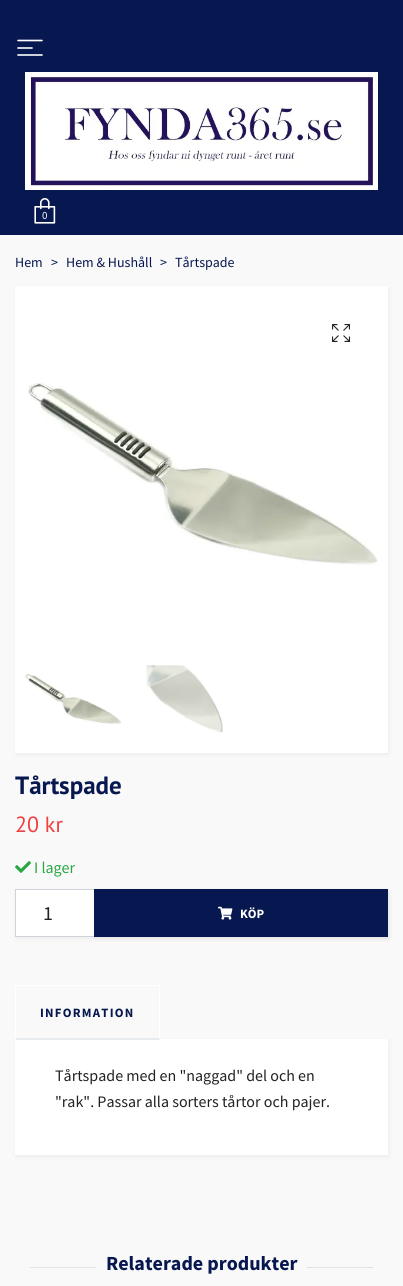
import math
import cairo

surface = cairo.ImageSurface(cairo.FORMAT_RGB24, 403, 1286)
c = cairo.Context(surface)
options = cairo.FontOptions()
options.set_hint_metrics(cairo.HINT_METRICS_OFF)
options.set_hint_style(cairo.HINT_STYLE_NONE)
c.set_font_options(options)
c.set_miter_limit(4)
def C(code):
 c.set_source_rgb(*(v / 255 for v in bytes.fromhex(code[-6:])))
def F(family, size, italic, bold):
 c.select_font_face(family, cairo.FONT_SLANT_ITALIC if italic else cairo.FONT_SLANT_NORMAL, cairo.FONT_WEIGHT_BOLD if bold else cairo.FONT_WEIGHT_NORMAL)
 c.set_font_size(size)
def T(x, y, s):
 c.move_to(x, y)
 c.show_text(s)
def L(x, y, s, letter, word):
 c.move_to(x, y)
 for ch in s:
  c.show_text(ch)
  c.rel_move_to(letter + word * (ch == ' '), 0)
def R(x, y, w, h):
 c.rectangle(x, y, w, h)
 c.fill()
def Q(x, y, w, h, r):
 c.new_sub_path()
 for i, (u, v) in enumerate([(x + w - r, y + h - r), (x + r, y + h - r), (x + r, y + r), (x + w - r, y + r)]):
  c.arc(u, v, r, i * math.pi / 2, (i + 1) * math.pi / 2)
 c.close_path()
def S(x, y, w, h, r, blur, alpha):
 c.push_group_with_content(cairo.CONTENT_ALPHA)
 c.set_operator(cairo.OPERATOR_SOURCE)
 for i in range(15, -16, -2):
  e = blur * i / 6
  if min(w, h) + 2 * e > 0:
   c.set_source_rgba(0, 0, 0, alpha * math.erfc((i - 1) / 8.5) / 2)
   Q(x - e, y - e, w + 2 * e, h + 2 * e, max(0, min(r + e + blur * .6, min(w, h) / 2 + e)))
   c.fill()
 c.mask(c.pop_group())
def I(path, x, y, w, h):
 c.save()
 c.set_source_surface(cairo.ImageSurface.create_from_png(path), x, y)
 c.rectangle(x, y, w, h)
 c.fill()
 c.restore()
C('f9f9fa')
c.paint()
C('07174f')
R(0,0,403,235)
c.new_path()
c.move_to(18,40.5)
c.line_to(42,40.5)
c.move_to(18,48)
c.line_to(32,48)
c.move_to(18,55)
c.line_to(42,55)
C('ffffff')
c.set_line_width(1.6)
c.set_line_cap(cairo.LINE_CAP_ROUND)
c.set_line_join(cairo.LINE_JOIN_ROUND)
c.stroke()
I('1.png',25,72,353,118)
I('2.png',34,198,22,26)
F('Source Sans Pro',11,0,0)
T(42,219,'0')
F('Source Sans Pro',14,0,0)
C('07174f')
T(15,267,'Hem')
T(51,267,'>')
T(66,267,'Hem & Hushåll')
T(160,267,'>')
T(175,267,'Tårtspade')
C('000000')
S(16,288,373,467,0,2,.05)
C('ffffff')
R(15,286,373,467)
I('3.png',332,324,18,18)
I('4.png',28,383,350,182)
I('5.png',25,674,97,50)
I('6.png',146,665,77,68)
F('PT Sans',25,0,1)
C('07174f')
T(15,794,'Tårtspade')
F('PT Sans',22,0,0)
C('f03f3f')
T(15,832,'20 kr')
I('7.png',15,861,16,12)
F('Source Sans Pro',16,0,0)
C('28a745')
T(34,873,'I lager')
C('000000')
S(16,891,373,48,0,2,.05)
C('ffffff')
c.rectangle(15.5,889.5,79,47)
c.fill_preserve()
C('ced4da')
c.set_line_width(1)
c.set_line_cap(cairo.LINE_CAP_BUTT)
c.set_line_join(cairo.LINE_JOIN_MITER)
c.stroke()
F('Source Sans Pro',20,0,0)
C('222222')
T(43,920,'1')
C('000000')
S(95,891,294,48,0,2,.05)
C('07174f')
R(94,889,294,48)
I('8.png',218,906,15,14)
F('Source Sans Pro',12.75,0,1)
C('ffffff')
T(240,918,'KÖP')
R(15,985,145,1)
C('000000')
S(16,1041,373,116,0,2,.05)
C('ffffff')
R(15,1039,373,116)
c.new_path()
c.move_to(160,985)
c.line_to(160,1040)
c.line_to(159,1038)
c.line_to(159,986)
c.close_path()
c.fill()
C('e9ecef')
c.new_path()
c.move_to(160,1040)
c.line_to(15,1040)
c.line_to(16,1038)
c.line_to(159,1038)
c.close_path()
c.fill()
C('ffffff')
c.new_path()
c.move_to(15,1040)
c.line_to(15,985)
c.line_to(16,986)
c.line_to(16,1038)
c.close_path()
c.fill()
C('07174f')
L(40,1017,'INFORMATION',1.25,0)
F('Source Sans Pro',16,0,0)
C('222222')
T(55,1081,'Tårtspade med en "naggad" del och en')
T(55,1107,'"rak". Passar alla sorters tårtor och pajer.')
C('e3e3e4')
R(30,1267,343,1)
C('f9f9fa')
R(96,1267,211,1)
F('Source Sans Pro',20,0,1)
C('07174f')
T(106,1270,'Relaterade produkter')
surface.write_to_png('o.png')
